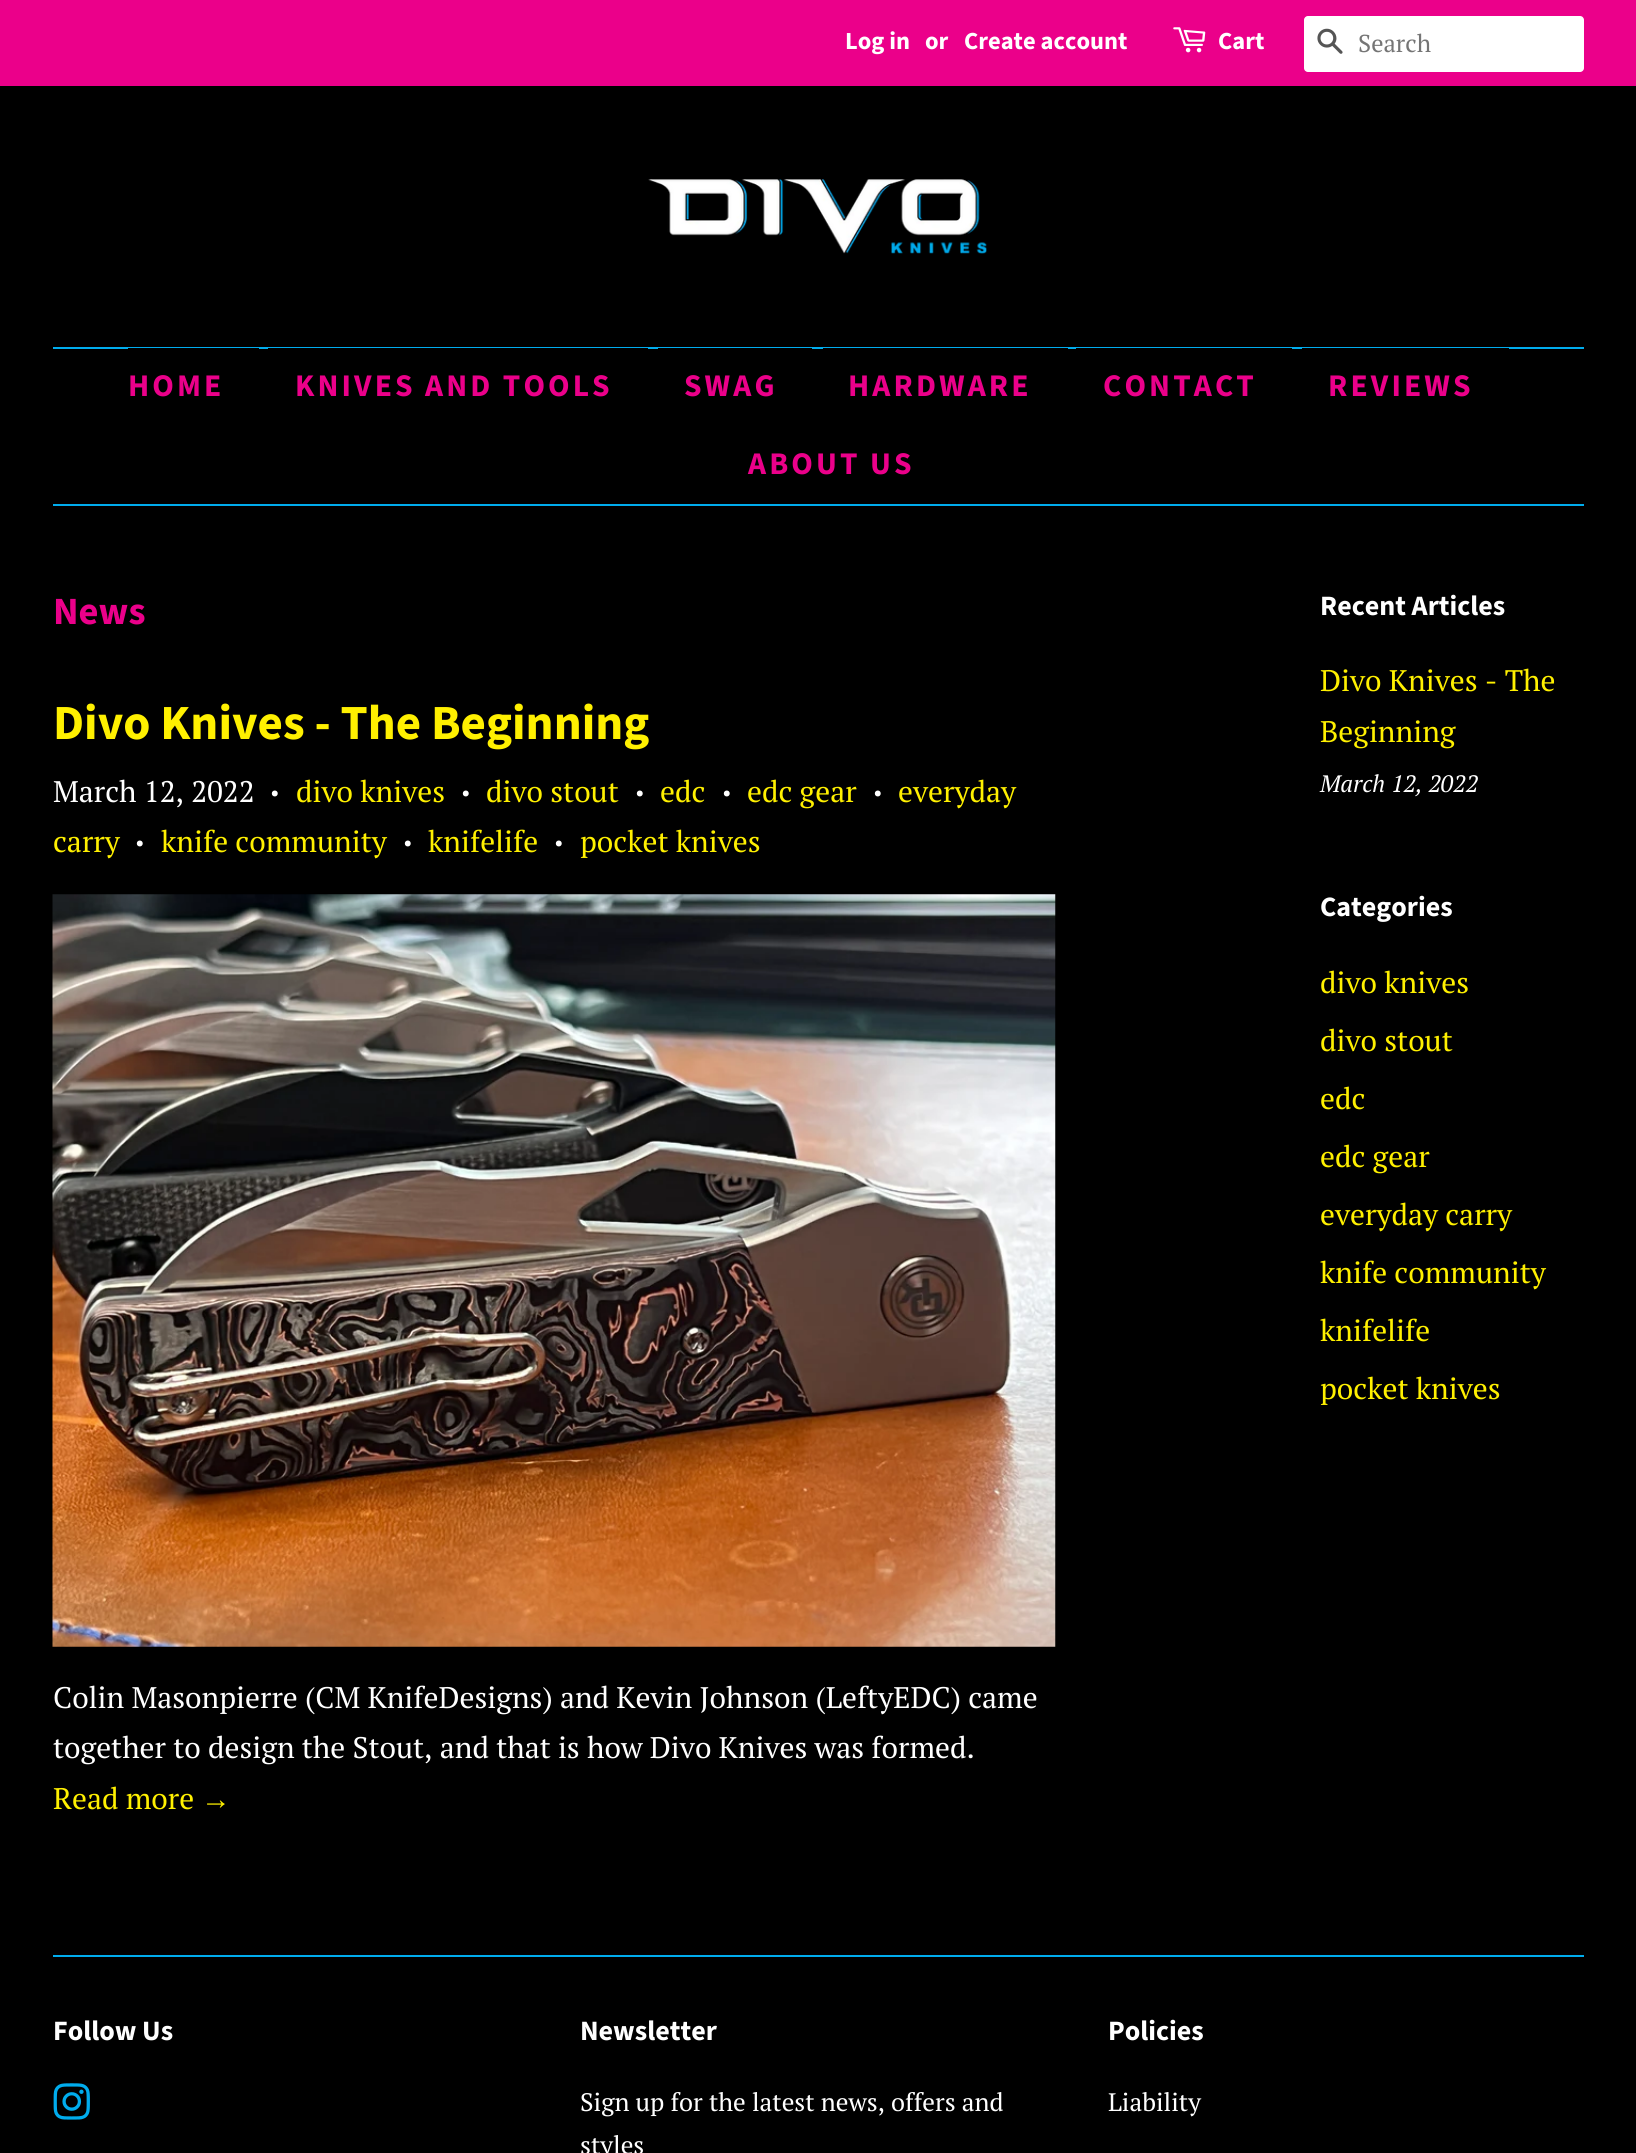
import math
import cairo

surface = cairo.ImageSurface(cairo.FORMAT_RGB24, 1636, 2153)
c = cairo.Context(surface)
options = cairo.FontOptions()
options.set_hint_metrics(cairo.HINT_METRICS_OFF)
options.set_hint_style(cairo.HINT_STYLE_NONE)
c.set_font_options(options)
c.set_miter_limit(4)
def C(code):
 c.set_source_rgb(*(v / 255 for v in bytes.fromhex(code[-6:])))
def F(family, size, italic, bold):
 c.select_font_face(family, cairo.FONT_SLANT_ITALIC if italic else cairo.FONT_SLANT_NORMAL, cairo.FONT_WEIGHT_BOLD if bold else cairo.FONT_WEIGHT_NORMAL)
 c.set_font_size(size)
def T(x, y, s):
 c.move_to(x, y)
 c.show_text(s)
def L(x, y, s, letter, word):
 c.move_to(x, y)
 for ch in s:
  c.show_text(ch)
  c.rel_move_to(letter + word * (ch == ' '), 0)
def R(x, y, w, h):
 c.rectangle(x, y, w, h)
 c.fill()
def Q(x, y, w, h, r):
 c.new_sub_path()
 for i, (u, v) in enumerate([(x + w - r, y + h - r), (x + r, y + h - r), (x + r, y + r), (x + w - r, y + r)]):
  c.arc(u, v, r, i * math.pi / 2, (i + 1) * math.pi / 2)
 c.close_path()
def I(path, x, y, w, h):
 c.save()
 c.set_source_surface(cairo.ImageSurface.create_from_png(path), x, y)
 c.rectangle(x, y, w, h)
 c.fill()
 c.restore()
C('000000')
c.paint()
C('eb008a')
R(0,0,1636,86)
F('Source Sans Pro',24.5,0,1)
C('ffffff')
T(845,49,'Log in')
T(925,49,'or')
T(964,49,'Create account')
I('1.png',1173,27,33,26)
T(1218,49,'Cart')
Q(1304,16,280,56,4)
c.fill()
I('2.png',1317,28,26,26)
F('PT Serif',24.5,0,0)
C('757575')
T(1358,52,'Search')
I('3.png',648,179,339,75)
C('00aced')
R(53,347,1531,2)
R(53,504,1531,2)
C('000000')
R(128,348,131,1)
F('Source Sans Pro',31.5,0,1)
C('eb008a')
L(128,396,'HOME',3.1,0)
C('000000')
R(268,348,380,1)
C('eb008a')
L(295,396,'KNIVES AND TOOLS',3.1,0)
C('000000')
R(658,348,154,1)
C('eb008a')
L(684,396,'SWAG',3.1,0)
C('000000')
R(823,348,245,1)
C('eb008a')
L(848,396,'HARDWARE',3.1,0)
C('000000')
R(1076,348,216,1)
C('eb008a')
L(1103,396,'CONTACT',3.1,0)
C('000000')
R(1302,348,207,1)
C('eb008a')
L(1328,396,'REVIEWS',3.1,0)
L(748,474,'ABOUT US',3.1,0)
F('Source Sans Pro',38.5,0,1)
T(53,624,'News')
F('Source Sans Pro',49,0,1)
C('fff000')
T(53,739,'Divo Knives - The Beginning')
F('PT Serif',29.75,0,0)
C('ffffff')
T(53,802,'March 12, 2022')
F('PT Serif',21,0,0)
T(270,800,'•')
F('PT Serif',29.75,0,0)
C('fff000')
T(296,802,'divo knives')
F('PT Serif',21,0,0)
C('ffffff')
T(461,800,'•')
F('PT Serif',29.75,0,0)
C('fff000')
T(486,802,'divo stout')
F('PT Serif',21,0,0)
C('ffffff')
T(635,800,'•')
F('PT Serif',29.75,0,0)
C('fff000')
T(660,802,'edc')
F('PT Serif',21,0,0)
C('ffffff')
T(722,800,'•')
F('PT Serif',29.75,0,0)
C('fff000')
T(747,802,'edc gear')
F('PT Serif',21,0,0)
C('ffffff')
T(873,800,'•')
F('PT Serif',29.75,0,0)
C('fff000')
T(898,802,'everyday')
T(53,852,'carry')
F('PT Serif',21,0,0)
C('ffffff')
T(135,850,'•')
F('PT Serif',29.75,0,0)
C('fff000')
T(161,852,'knife community')
F('PT Serif',21,0,0)
C('ffffff')
T(403,850,'•')
F('PT Serif',29.75,0,0)
C('fff000')
T(428,852,'knifelife')
F('PT Serif',21,0,0)
C('ffffff')
T(554,850,'•')
F('PT Serif',29.75,0,0)
C('fff000')
T(580,852,'pocket knives')
I('4.png',52,894,1004,753)
C('ffffff')
T(53,1708,'Colin Masonpierre (CM KnifeDesigns) and Kevin Johnson (LeftyEDC) came')
T(53,1758,'together to design the Stout, and that is how Divo Knives was formed.')
C('fff000')
T(53,1809,'Read more')
F('Liberation Serif',29.75,0,0)
T(201,1809,'→')
F('Source Sans Pro',28,0,1)
C('ffffff')
T(1320,615,'Recent Articles')
F('PT Serif',29.75,0,0)
C('fff000')
T(1320,691,'Divo Knives - The')
T(1320,742,'Beginning')
F('PT Serif',23.75,1,0)
C('ffffff')
T(1320,792,'March 12, 2022')
F('Source Sans Pro',28,0,1)
T(1320,916,'Categories')
F('PT Serif',29.75,0,0)
C('fff000')
T(1320,993,'divo knives')
T(1320,1051,'divo stout')
T(1320,1109,'edc')
T(1320,1167,'edc gear')
T(1320,1225,'everyday carry')
T(1320,1283,'knife community')
T(1320,1341,'knifelife')
T(1320,1399,'pocket knives')
C('00aced')
R(53,1955,1531,2)
F('Source Sans Pro',28,0,1)
C('ffffff')
T(53,2040,'Follow Us')
I('5.png',53,2083,37,37)
T(580,2040,'Newsletter')
F('PT Serif',25.25,0,0)
T(580,2111,'Sign up for the latest news, offers and')
T(580,2154,'styles')
F('Source Sans Pro',28,0,1)
T(1108,2040,'Policies')
F('PT Serif',25.25,0,0)
T(1108,2111,'Liability')
surface.write_to_png('o.png')
